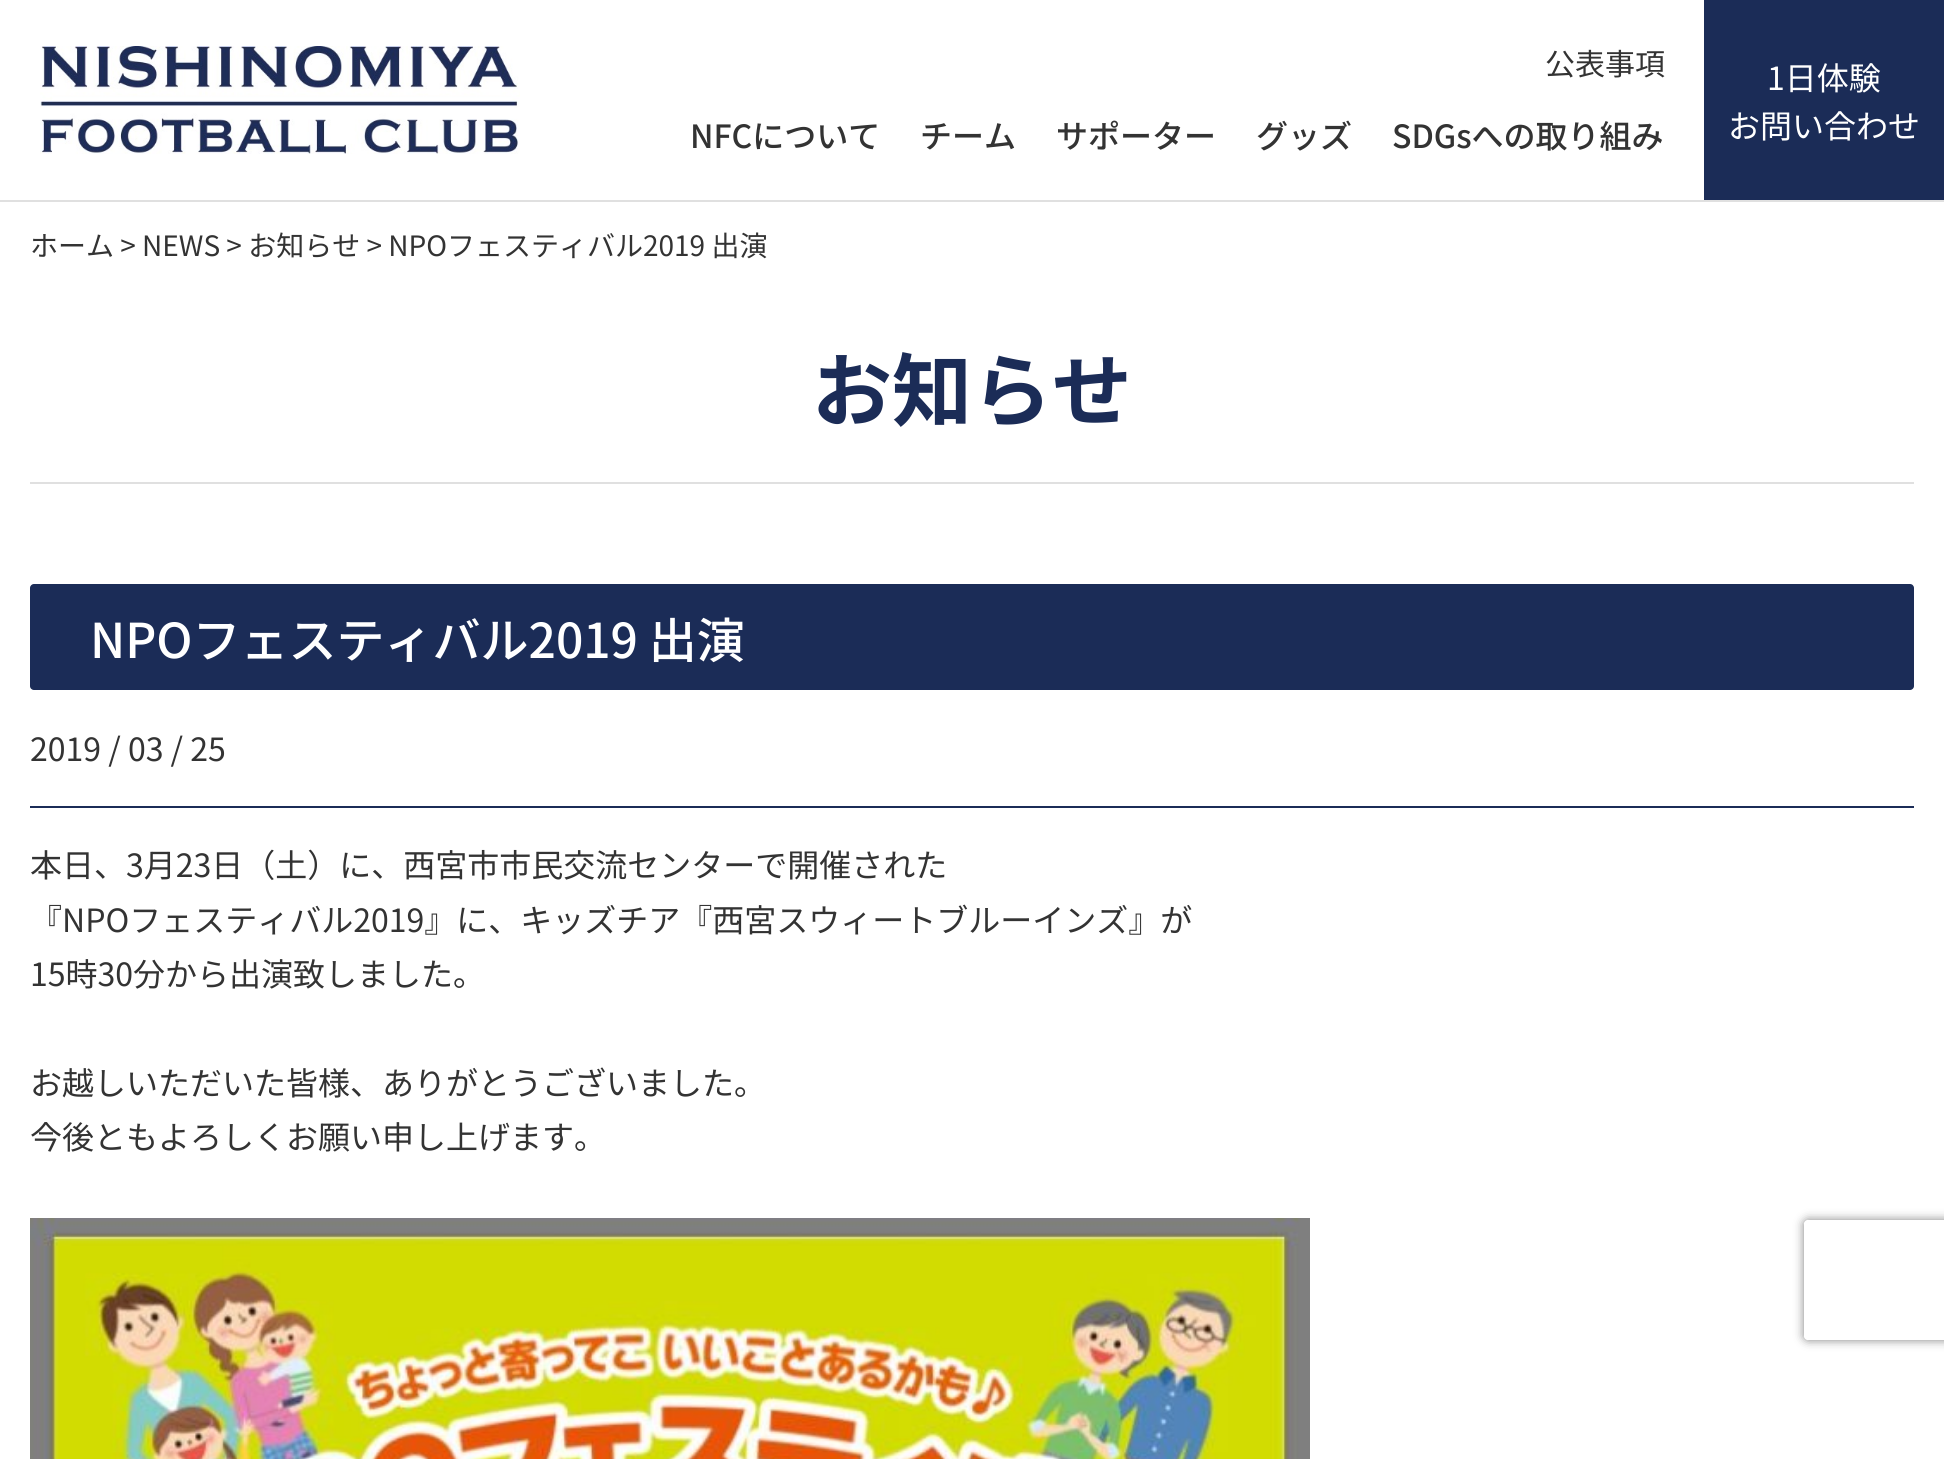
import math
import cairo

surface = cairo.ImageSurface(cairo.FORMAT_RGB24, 1944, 1459)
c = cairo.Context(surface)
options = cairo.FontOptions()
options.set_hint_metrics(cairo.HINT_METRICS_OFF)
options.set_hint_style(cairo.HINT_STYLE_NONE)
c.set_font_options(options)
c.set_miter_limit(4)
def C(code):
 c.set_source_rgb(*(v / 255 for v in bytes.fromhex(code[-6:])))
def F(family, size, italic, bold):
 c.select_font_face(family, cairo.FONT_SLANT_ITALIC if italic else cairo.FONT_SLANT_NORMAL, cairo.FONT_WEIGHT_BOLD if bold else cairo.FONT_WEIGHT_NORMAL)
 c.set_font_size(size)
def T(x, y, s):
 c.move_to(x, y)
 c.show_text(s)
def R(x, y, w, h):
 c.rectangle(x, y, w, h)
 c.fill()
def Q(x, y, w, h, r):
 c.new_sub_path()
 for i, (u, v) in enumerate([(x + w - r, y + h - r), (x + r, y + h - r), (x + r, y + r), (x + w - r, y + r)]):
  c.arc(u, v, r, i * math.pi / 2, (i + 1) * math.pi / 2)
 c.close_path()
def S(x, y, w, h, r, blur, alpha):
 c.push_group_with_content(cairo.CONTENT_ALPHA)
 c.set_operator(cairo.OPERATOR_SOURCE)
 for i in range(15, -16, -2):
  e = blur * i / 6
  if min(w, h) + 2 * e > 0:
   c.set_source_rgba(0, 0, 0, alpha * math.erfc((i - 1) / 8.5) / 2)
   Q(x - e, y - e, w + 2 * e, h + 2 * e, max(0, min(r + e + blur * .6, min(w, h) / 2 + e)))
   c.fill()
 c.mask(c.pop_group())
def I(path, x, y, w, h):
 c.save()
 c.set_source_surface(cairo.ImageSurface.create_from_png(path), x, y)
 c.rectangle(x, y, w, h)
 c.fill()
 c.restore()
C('ffffff')
c.paint()
C('e0e0e0')
R(0,200,1944,2)
I('1.png',40,46,480,108)
F('Noto Sans JP',30,0,0)
C('333333')
T(1545,75,'公表事項')
F('Noto Sans JP Medium',32,0,0)
T(690,148,'NFCについて')
T(920,148,'チーム')
T(1056,148,'サポーター')
T(1256,148,'グッズ')
T(1392,148,'SDGsへの取り組み')
C('1b2c57')
R(1704,0,240,200)
F('Noto Sans JP',32,0,0)
C('ffffff')
T(1767,90,'1日体験')
T(1728,138,'お問い合わせ')
F('Noto Sans JP',28,0,0)
C('333333')
T(30,256,'ホーム > NEWS > お知らせ > NPOフェスティバル2019 出演')
C('e0e0e0')
R(30,482,1884,2)
F('Noto Sans JP',80,0,1)
C('1b2c57')
T(812,420,'お知らせ')
Q(30,584,1884,106,4)
c.fill()
F('Noto Sans JP Medium',48,0,0)
C('ffffff')
T(90,658,'NPOフェスティバル2019 出演')
C('1b2c57')
R(30,806,1884,2)
F('Noto Sans JP',32,0,0)
C('333333')
T(30,761,'2019 / 03 / 25')
T(30,877,'本日、3月23日（土）に、西宮市市民交流センターで開催された')
T(30,932,'『NPOフェスティバル2019』に、キッズチア『西宮スウィートブルーインズ』が')
T(30,986,'15時30分から出演致しました。')
T(30,1095,'お越しいただいた皆様、ありがとうございました。')
T(30,1149,'今後ともよろしくお願い申し上げます。')
I('2.png',30,1218,1280,241)
c.save()
c.set_fill_rule(cairo.FILL_RULE_EVEN_ODD)
c.new_path()
c.move_to(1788,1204)
c.line_to(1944,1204)
c.line_to(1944,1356)
c.line_to(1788,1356)
c.close_path()
c.move_to(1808,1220)
c.line_to(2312,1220)
c.curve_to(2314,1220,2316,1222,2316,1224)
c.line_to(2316,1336)
c.curve_to(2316,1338,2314,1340,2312,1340)
c.line_to(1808,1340)
c.curve_to(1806,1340,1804,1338,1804,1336)
c.line_to(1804,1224)
c.curve_to(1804,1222,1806,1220,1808,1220)
c.close_path()
c.clip()
C('808080')
S(1804,1220,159,120,4,5,1)
c.restore()
surface.write_to_png('o.png')
